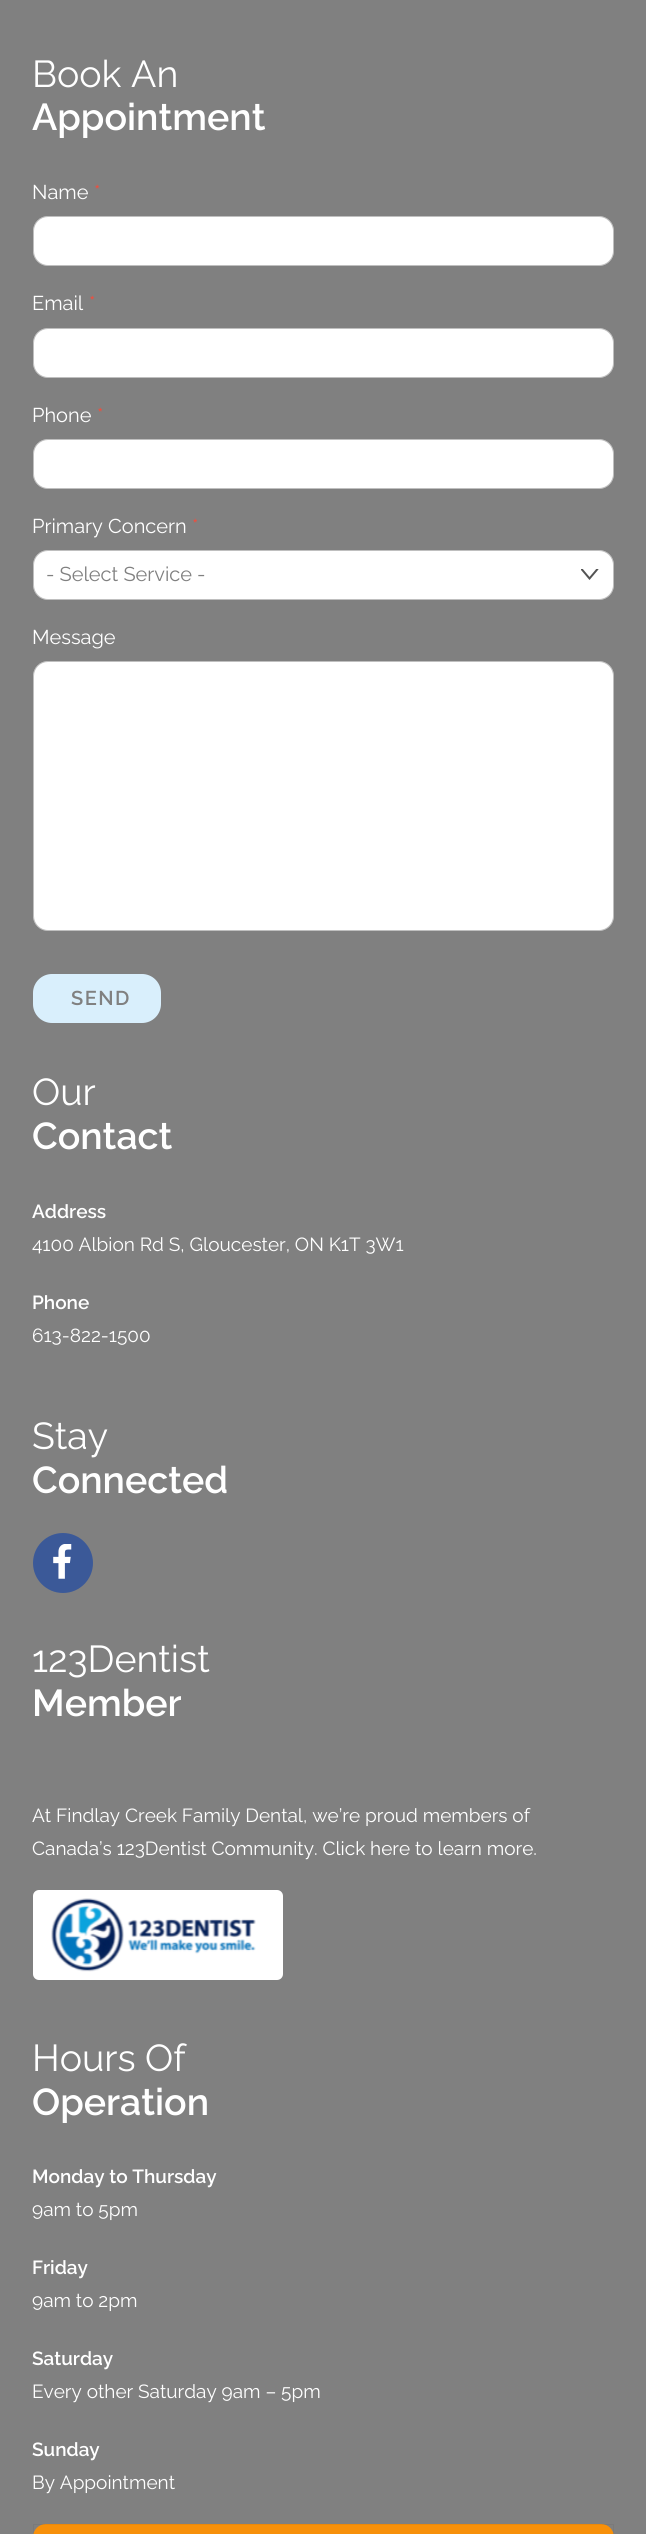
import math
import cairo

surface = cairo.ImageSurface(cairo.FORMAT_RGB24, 646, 2534)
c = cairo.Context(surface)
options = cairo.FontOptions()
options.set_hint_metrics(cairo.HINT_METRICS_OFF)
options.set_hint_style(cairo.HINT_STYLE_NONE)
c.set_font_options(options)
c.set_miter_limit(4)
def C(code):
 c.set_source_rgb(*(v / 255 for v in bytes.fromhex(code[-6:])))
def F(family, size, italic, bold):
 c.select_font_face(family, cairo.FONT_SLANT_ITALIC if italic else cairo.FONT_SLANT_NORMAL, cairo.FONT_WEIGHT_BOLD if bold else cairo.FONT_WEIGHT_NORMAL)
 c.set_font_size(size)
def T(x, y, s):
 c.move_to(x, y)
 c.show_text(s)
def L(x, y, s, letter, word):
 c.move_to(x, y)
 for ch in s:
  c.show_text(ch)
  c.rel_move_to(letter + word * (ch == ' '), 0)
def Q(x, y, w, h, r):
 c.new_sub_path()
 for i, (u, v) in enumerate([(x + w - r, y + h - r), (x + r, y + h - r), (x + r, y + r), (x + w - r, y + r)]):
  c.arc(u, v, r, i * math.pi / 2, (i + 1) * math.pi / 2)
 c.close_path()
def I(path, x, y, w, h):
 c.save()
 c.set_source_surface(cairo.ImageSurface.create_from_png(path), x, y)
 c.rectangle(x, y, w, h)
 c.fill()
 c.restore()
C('808080')
c.paint()
F('Raleway',37.5,0,0)
C('ffffff')
T(32,87,'Book An')
F('Raleway SemiBold',37.5,0,0)
T(32,130,'Appointment')
F('Raleway',20,0,0)
T(32,199,'Name')
C('f24c3b')
T(94,199,'*')
C('ffffff')
Q(33,216,581,50,15)
c.fill()
Q(33.5,216.5,580,49,14.5)
c.set_source_rgba(0,0,0,0.25)
c.set_line_width(1)
c.stroke()
C('ffffff')
T(32,310,'Email')
C('f24c3b')
T(89,310,'*')
C('ffffff')
Q(33,328,581,50,15)
c.fill()
Q(33.5,328.5,580,49,14.5)
c.set_source_rgba(0,0,0,0.25)
c.stroke()
C('ffffff')
T(32,422,'Phone')
C('f24c3b')
T(97,422,'*')
C('ffffff')
Q(33,439,581,50,15)
c.fill()
Q(33.5,439.5,580,49,14.5)
c.set_source_rgba(0,0,0,0.25)
c.stroke()
C('ffffff')
T(32,533,'Primary Concern')
C('f24c3b')
T(192,533,'*')
C('ffffff')
Q(33,550,581,50,15)
c.fill()
c.save()
c.rectangle(581,569,18,17)
c.clip()
c.new_path()
c.move_to(581.5,569)
c.line_to(589.5,578.5)
c.line_to(597.5,569)
C('535353')
c.set_line_width(2)
c.set_line_cap(cairo.LINE_CAP_ROUND)
c.stroke()
c.restore()
Q(33.5,550.5,580,49,14.5)
c.set_source_rgba(0,0,0,0.25)
c.stroke()
C('808080')
T(46,581,'- Select Service -')
C('ffffff')
T(32,644,'Message')
Q(33,661,581,270,15)
c.fill()
Q(33.5,661.5,580,269,14.5)
c.set_source_rgba(0,0,0,0.25)
c.stroke()
C('d9effc')
Q(33,974,128,49,19)
c.fill()
F('Raleway SemiBold',20,0,0)
C('808080')
L(71,1005,'SEND',1.5,0)
F('Raleway',37.5,0,0)
C('ffffff')
T(32,1105,'Our')
F('Raleway SemiBold',37.5,0,0)
T(32,1149,'Contact')
F('Raleway SemiBold',19,0,0)
T(32,1218,'Address')
F('Raleway',19,0,0)
T(32,1251,'4100 Albion Rd S, Gloucester, ON K1T 3W1')
F('Raleway SemiBold',19,0,0)
T(32,1309,'Phone')
F('Raleway',19,0,0)
T(32,1342,'613-822-1500')
F('Raleway',37.5,0,0)
T(32,1449,'Stay')
F('Raleway SemiBold',37.5,0,0)
T(32,1493,'Connected')
C('3b5998')
c.new_path()
c.arc(63,1563,30,0,2 * math.pi)
c.fill()
I('1.png',53,1544,19,35)
F('Raleway',37.5,0,0)
C('ffffff')
T(32,1672,'123Dentist')
F('Raleway SemiBold',37.5,0,0)
T(32,1716,'Member')
F('Raleway',19,0,0)
T(32,1822,'At Findlay Creek Family Dental, we’re proud members of')
T(32,1855,'Canada’s 123Dentist Community. Click here to learn more.')
Q(33,1890,250,90,6)
c.fill()
I('2.png',51,1898,205,74)
F('Raleway',37.5,0,0)
T(32,2071,'Hours Of')
F('Raleway SemiBold',37.5,0,0)
T(32,2115,'Operation')
F('Raleway SemiBold',19,0,0)
T(32,2183,'Monday to Thursday')
F('Raleway',19,0,0)
T(32,2216,'9am to 5pm')
F('Raleway SemiBold',19,0,0)
T(32,2274,'Friday')
F('Raleway',19,0,0)
T(32,2307,'9am to 2pm')
F('Raleway SemiBold',19,0,0)
T(32,2365,'Saturday')
F('Raleway',19,0,0)
T(32,2398,'Every other Saturday 9am – 5pm')
F('Raleway SemiBold',19,0,0)
T(32,2456,'Sunday')
F('Raleway',19,0,0)
T(32,2489,'By Appointment')
C('f7900a')
Q(33,2524,581,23,13)
c.fill()
c.rectangle(33.5,2524.5,580,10)
c.set_source_rgba(0,0,0,0.05)
c.stroke()
surface.write_to_png('o.png')
